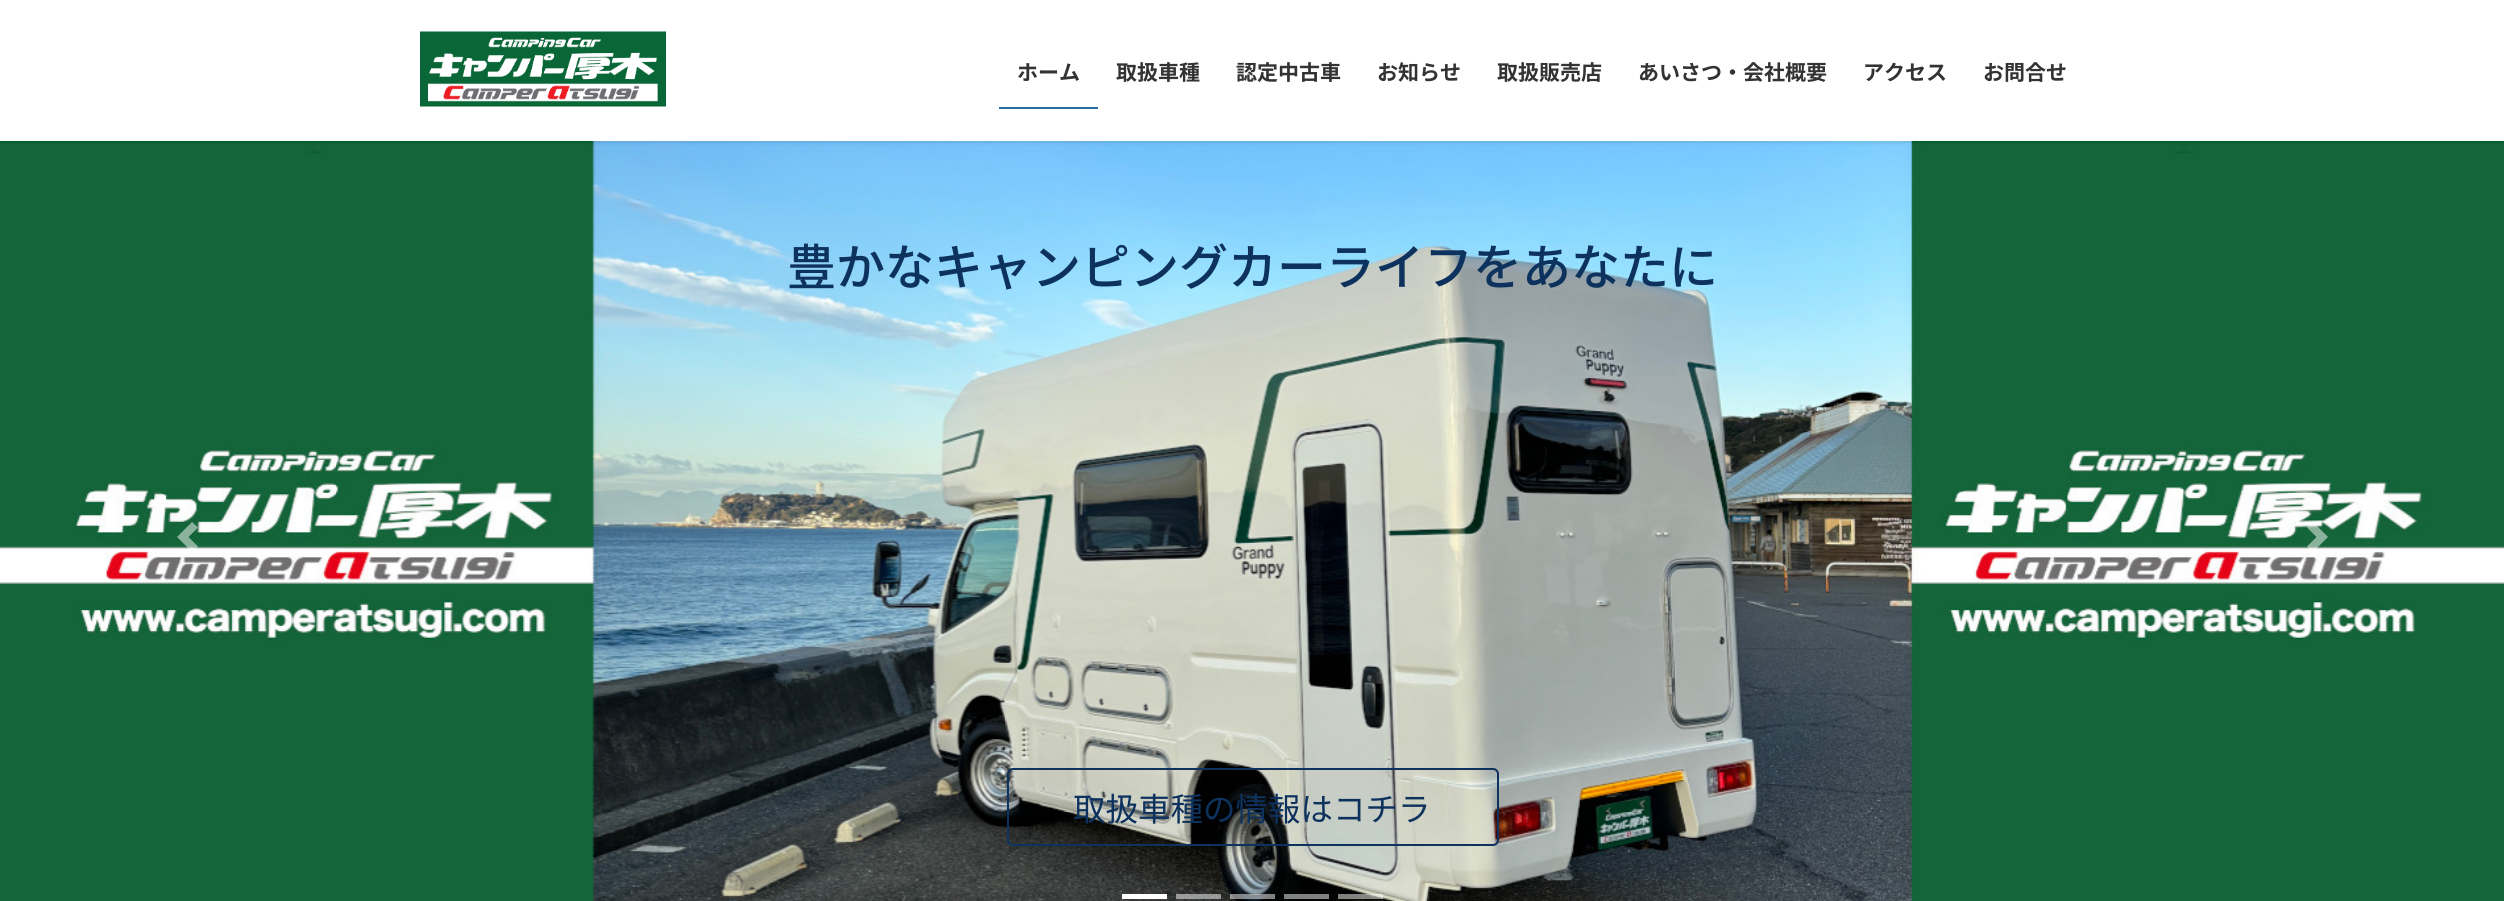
import math
import cairo

surface = cairo.ImageSurface(cairo.FORMAT_RGB24, 2504, 901)
c = cairo.Context(surface)
options = cairo.FontOptions()
options.set_hint_metrics(cairo.HINT_METRICS_OFF)
options.set_hint_style(cairo.HINT_STYLE_NONE)
c.set_font_options(options)
c.set_miter_limit(4)
def C(code):
 c.set_source_rgb(*(v / 255 for v in bytes.fromhex(code[-6:])))
def F(family, size, italic, bold):
 c.select_font_face(family, cairo.FONT_SLANT_ITALIC if italic else cairo.FONT_SLANT_NORMAL, cairo.FONT_WEIGHT_BOLD if bold else cairo.FONT_WEIGHT_NORMAL)
 c.set_font_size(size)
def T(x, y, s):
 c.move_to(x, y)
 c.show_text(s)
def R(x, y, w, h):
 c.rectangle(x, y, w, h)
 c.fill()
def Q(x, y, w, h, r):
 c.new_sub_path()
 for i, (u, v) in enumerate([(x + w - r, y + h - r), (x + r, y + h - r), (x + r, y + r), (x + w - r, y + r)]):
  c.arc(u, v, r, i * math.pi / 2, (i + 1) * math.pi / 2)
 c.close_path()
def S(x, y, w, h, r, blur, alpha):
 c.push_group_with_content(cairo.CONTENT_ALPHA)
 c.set_operator(cairo.OPERATOR_SOURCE)
 for i in range(15, -16, -2):
  e = blur * i / 6
  if min(w, h) + 2 * e > 0:
   c.set_source_rgba(0, 0, 0, alpha * math.erfc((i - 1) / 8.5) / 2)
   Q(x - e, y - e, w + 2 * e, h + 2 * e, max(0, min(r + e + blur * .6, min(w, h) / 2 + e)))
   c.fill()
 c.mask(c.pop_group())
def I(path, x, y, w, h):
 c.save()
 c.set_source_surface(cairo.ImageSurface.create_from_png(path), x, y)
 c.rectangle(x, y, w, h)
 c.fill()
 c.restore()
C('ffffff')
c.paint()
I('2.png',0,141,2504,760)
C('000000')
S(0,2,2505,141,0,2,.1)
C('ffffff')
R(0,0,2504,141)
I('1.png',420,31,246,76)
F('Noto Sans JP',21,0,1)
C('333333')
T(1017,80,'ホーム')
C('2e6da4')
R(999,107,99,2)
C('333333')
T(1116,80,'取扱車種')
T(1236,80,'認定中古車')
T(1377,80,'お知らせ')
T(1497,80,'取扱販売店')
T(1638,80,'あいさつ・会社概要')
T(1863,80,'アクセス')
T(1983,80,'お問合せ')
c.set_source_rgba(1,1,1,0.5)
c.new_path()
c.move_to(192,522)
c.line_to(177,537)
c.line_to(192,552)
c.line_to(198,546.5)
c.line_to(188.5,537)
c.line_to(198,527.5)
c.close_path()
c.fill()
F('Noto Sans JP Medium',49,0,0)
C('0e325e')
T(787,285,'豊かなキャンピングカーライフをあなたに')
Q(1008,769,490,76,5)
c.stroke()
F('Noto Sans JP',32.5,0,0)
T(1073,821,'取扱車種の情報はコチラ')
c.set_source_rgba(1,1,1,0.5)
c.new_path()
c.move_to(2313,522)
c.line_to(2307,527.5)
c.line_to(2316.5,537)
c.line_to(2307,546.5)
c.line_to(2313,552)
c.line_to(2328,537)
c.close_path()
c.fill()
C('ffffff')
R(1122,894,45,5)
c.set_source_rgba(1,1,1,0.5)
R(1176,894,45,5)
R(1230,894,45,5)
R(1284,894,45,5)
R(1338,894,45,5)
surface.write_to_png('o.png')
